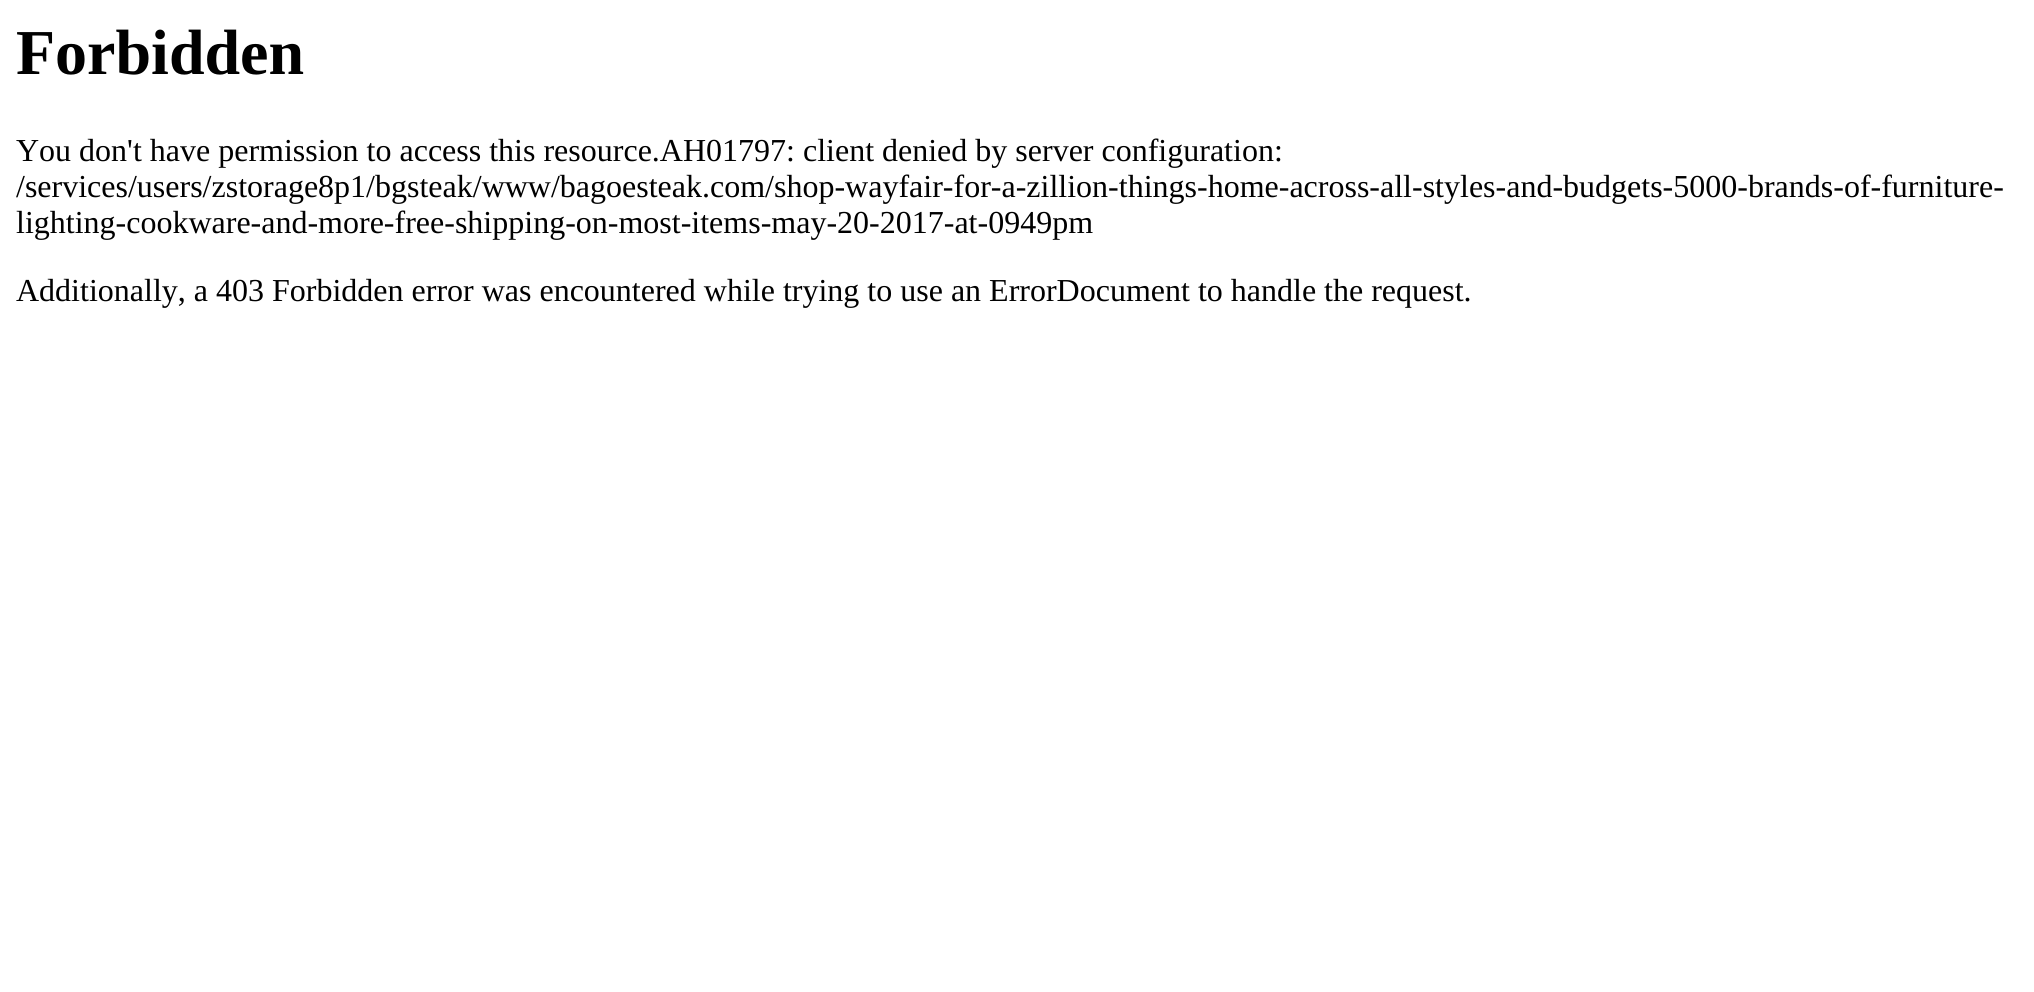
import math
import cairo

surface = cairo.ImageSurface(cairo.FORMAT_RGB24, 2034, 992)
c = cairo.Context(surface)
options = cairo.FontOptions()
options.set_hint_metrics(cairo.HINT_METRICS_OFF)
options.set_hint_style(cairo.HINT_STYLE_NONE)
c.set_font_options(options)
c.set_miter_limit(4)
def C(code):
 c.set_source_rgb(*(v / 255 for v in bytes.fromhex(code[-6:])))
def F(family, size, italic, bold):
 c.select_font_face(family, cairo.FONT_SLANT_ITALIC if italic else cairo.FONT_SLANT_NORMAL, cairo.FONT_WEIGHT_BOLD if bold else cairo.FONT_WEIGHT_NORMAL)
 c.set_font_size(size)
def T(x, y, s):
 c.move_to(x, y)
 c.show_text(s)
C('ffffff')
c.paint()
F('Liberation Serif',64,0,1)
C('000000')
T(16,74,'Forbidden')
F('Liberation Serif',32,0,0)
T(16,161,'You don\'t have permission to access this resource.AH01797: client denied by server configuration:')
T(16,197,'/services/users/zstorage8p1/bgsteak/www/bagoesteak.com/shop-wayfair-for-a-zillion-things-home-across-all-styles-and-budgets-5000-brands-of-furniture-')
T(16,233,'lighting-cookware-and-more-free-shipping-on-most-items-may-20-2017-at-0949pm')
T(16,301,'Additionally, a 403 Forbidden error was encountered while trying to use an ErrorDocument to handle the request.')
surface.write_to_png('o.png')
